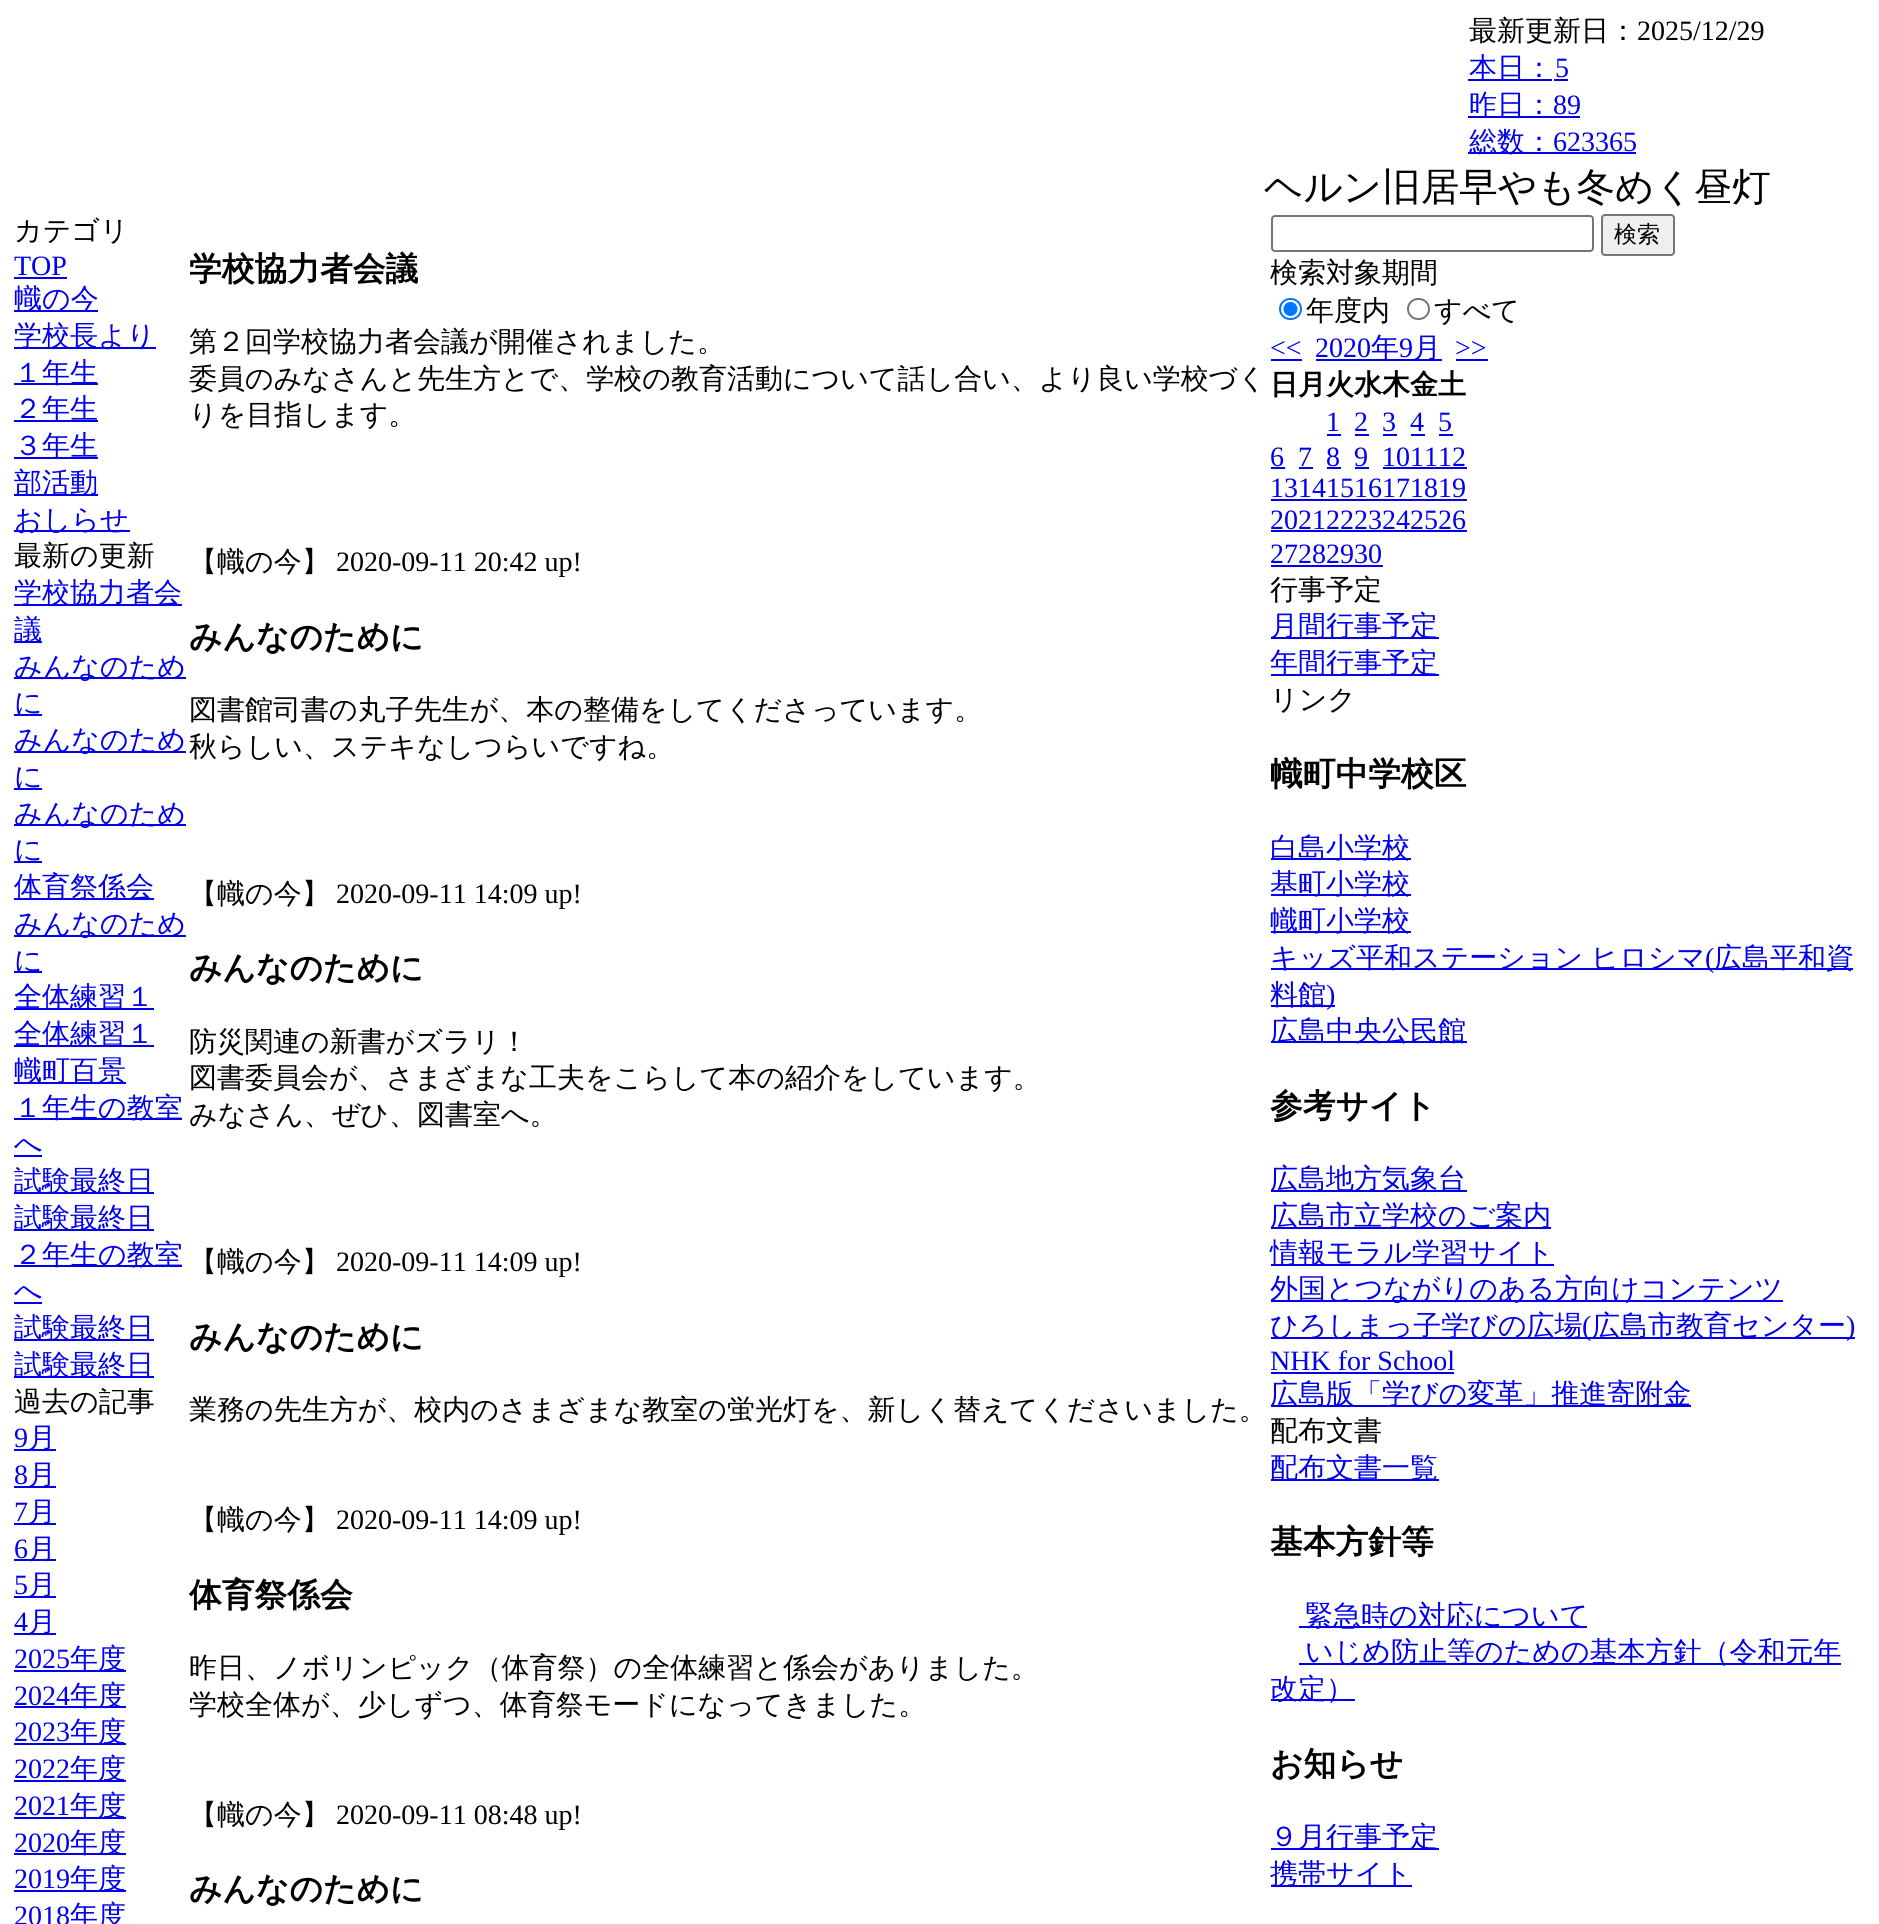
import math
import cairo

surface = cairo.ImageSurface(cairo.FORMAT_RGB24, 1879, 1924)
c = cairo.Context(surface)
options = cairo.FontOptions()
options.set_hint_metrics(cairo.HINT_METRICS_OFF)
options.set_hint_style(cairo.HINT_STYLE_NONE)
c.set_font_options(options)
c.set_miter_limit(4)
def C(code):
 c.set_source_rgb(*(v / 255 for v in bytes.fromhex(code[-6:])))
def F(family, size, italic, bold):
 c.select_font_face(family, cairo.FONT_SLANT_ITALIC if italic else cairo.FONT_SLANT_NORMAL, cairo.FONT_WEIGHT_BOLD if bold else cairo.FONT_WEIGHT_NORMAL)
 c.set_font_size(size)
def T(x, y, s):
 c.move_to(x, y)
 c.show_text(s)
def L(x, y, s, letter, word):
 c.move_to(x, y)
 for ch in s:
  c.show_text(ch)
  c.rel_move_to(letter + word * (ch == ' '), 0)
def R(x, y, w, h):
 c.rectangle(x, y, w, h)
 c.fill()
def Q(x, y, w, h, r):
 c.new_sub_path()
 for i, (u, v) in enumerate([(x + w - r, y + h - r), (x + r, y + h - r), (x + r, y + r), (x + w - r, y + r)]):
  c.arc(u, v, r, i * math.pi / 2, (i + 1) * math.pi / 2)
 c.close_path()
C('ffffff')
c.paint()
F('WenQuanYi Zen Hei Medium',28,0,0)
C('000000')
T(1469,40,'最新更新日：')
F('Liberation Serif',28,0,0)
T(1637,40,'2025/12/29')
C('0000ee')
R(1468,79,84,2)
F('WenQuanYi Zen Hei Medium',28,0,0)
T(1469,77,'本日：')
F('Liberation Serif',28,0,0)
T(1555,77,'5')
R(1554,79,14,2)
R(1468,116,112,2)
F('WenQuanYi Zen Hei Medium',28,0,0)
T(1469,114,'昨日：')
F('Liberation Serif',28,0,0)
T(1553,114,'89')
R(1468,152,168,2)
F('WenQuanYi Zen Hei Medium',28,0,0)
T(1469,151,'総数：')
F('Liberation Serif',28,0,0)
T(1553,151,'623365')
F('WenQuanYi Zen Hei Medium',38.5,0,0)
C('000000')
L(1264,200,'ヘルン旧居早やも冬めく昼灯',0,-2)
F('WenQuanYi Zen Hei Medium',28,0,0)
T(14,240,'カテゴリ')
F('Liberation Serif',28,0,0)
C('0000ee')
T(14,275,'TOP')
R(14,277,53,2)
R(14,310,84,2)
F('WenQuanYi Zen Hei Medium',28,0,0)
T(14,308,'幟の今')
R(14,347,142,2)
T(14,345,'学校長より')
R(14,383,84,2)
T(14,382,'１年生')
R(14,420,84,2)
T(14,418,'２年生')
R(14,457,84,2)
T(14,455,'３年生')
R(14,494,84,2)
T(14,492,'部活動')
R(14,530,116,2)
T(14,529,'おしらせ')
C('000000')
T(14,565,'最新の更新')
C('0000ee')
R(14,604,168,2)
T(14,602,'学校協力者会')
R(14,641,28,2)
T(14,639,'議')
R(14,677,172,2)
T(14,676,'みんなのため')
R(14,714,28,2)
T(14,712,'に')
R(14,751,172,2)
T(14,749,'みんなのため')
R(14,788,28,2)
T(14,786,'に')
R(14,824,172,2)
T(14,823,'みんなのため')
R(14,861,28,2)
T(14,859,'に')
R(14,898,140,2)
T(14,896,'体育祭係会')
R(14,935,172,2)
T(14,933,'みんなのため')
R(14,971,28,2)
T(14,970,'に')
R(14,1008,140,2)
T(14,1006,'全体練習１')
R(14,1045,140,2)
T(14,1043,'全体練習１')
R(14,1082,112,2)
T(14,1080,'幟町百景')
R(14,1118,168,2)
T(14,1117,'１年生の教室')
T(14,1153,'へ')
R(14,1155,28,2)
R(14,1192,140,2)
T(14,1190,'試験最終日')
R(14,1229,140,2)
T(14,1227,'試験最終日')
R(14,1265,168,2)
T(14,1264,'２年生の教室')
T(14,1300,'へ')
R(14,1302,28,2)
R(14,1339,140,2)
T(14,1337,'試験最終日')
R(14,1376,140,2)
T(14,1374,'試験最終日')
C('000000')
T(14,1411,'過去の記事')
F('Liberation Serif',28,0,0)
C('0000ee')
T(14,1447,'9')
R(14,1449,42,2)
F('WenQuanYi Zen Hei Medium',28,0,0)
T(28,1447,'月')
F('Liberation Serif',28,0,0)
T(14,1484,'8')
R(14,1486,42,2)
F('WenQuanYi Zen Hei Medium',28,0,0)
T(28,1484,'月')
F('Liberation Serif',28,0,0)
T(14,1521,'7')
R(14,1523,42,2)
F('WenQuanYi Zen Hei Medium',28,0,0)
T(28,1521,'月')
F('Liberation Serif',28,0,0)
T(14,1558,'6')
R(14,1559,42,2)
F('WenQuanYi Zen Hei Medium',28,0,0)
T(28,1558,'月')
F('Liberation Serif',28,0,0)
T(14,1594,'5')
R(14,1596,42,2)
F('WenQuanYi Zen Hei Medium',28,0,0)
T(28,1594,'月')
F('Liberation Serif',28,0,0)
T(14,1631,'4')
R(14,1633,42,2)
F('WenQuanYi Zen Hei Medium',28,0,0)
T(28,1631,'月')
F('Liberation Serif',28,0,0)
T(14,1668,'2025')
R(14,1670,112,2)
F('WenQuanYi Zen Hei Medium',28,0,0)
T(70,1668,'年度')
F('Liberation Serif',28,0,0)
T(14,1705,'2024')
R(14,1706,112,2)
F('WenQuanYi Zen Hei Medium',28,0,0)
T(70,1705,'年度')
F('Liberation Serif',28,0,0)
T(14,1741,'2023')
R(14,1743,112,2)
F('WenQuanYi Zen Hei Medium',28,0,0)
T(70,1741,'年度')
F('Liberation Serif',28,0,0)
T(14,1778,'2022')
R(14,1780,112,2)
F('WenQuanYi Zen Hei Medium',28,0,0)
T(70,1778,'年度')
F('Liberation Serif',28,0,0)
T(14,1815,'2021')
R(14,1817,112,2)
F('WenQuanYi Zen Hei Medium',28,0,0)
T(70,1815,'年度')
F('Liberation Serif',28,0,0)
T(14,1852,'2020')
R(14,1853,112,2)
F('WenQuanYi Zen Hei Medium',28,0,0)
T(70,1852,'年度')
F('Liberation Serif',28,0,0)
T(14,1888,'2019')
R(14,1890,112,2)
F('WenQuanYi Zen Hei Medium',28,0,0)
T(70,1888,'年度')
F('Liberation Serif',28,0,0)
T(14,1925,'2018')
F('WenQuanYi Zen Hei Medium',28,0,0)
T(70,1925,'年度')
F('WenQuanYi Zen Hei',32.75,0,1)
C('000000')
T(189,280,'学校協力者会議')
F('WenQuanYi Zen Hei Medium',28,0,0)
T(189,351,'第２回学校協力者会議が開催されました。')
T(189,388,'委員のみなさんと先生方とで、学校の教育活動について話し合い、より良い学校づく')
T(189,424,'りを目指します。')
T(189,571,'【幟の今】')
F('Liberation Serif',28,0,0)
T(336,571,'2020-09-11 20:42 up!')
F('WenQuanYi Zen Hei',32.75,0,1)
T(189,648,'みんなのために')
F('WenQuanYi Zen Hei Medium',28,0,0)
T(189,719,'図書館司書の丸子先生が、本の整備をしてくださっています。')
T(189,756,'秋らしい、ステキなしつらいですね。')
T(189,903,'【幟の今】')
F('Liberation Serif',28,0,0)
T(336,903,'2020-09-11 14:09 up!')
F('WenQuanYi Zen Hei',32.75,0,1)
T(189,979,'みんなのために')
F('WenQuanYi Zen Hei Medium',28,0,0)
T(189,1051,'防災関連の新書がズラリ！')
T(189,1087,'図書委員会が、さまざまな工夫をこらして本の紹介をしています。')
T(189,1124,'みなさん、ぜひ、図書室へ。')
T(189,1271,'【幟の今】')
F('Liberation Serif',28,0,0)
T(336,1271,'2020-09-11 14:09 up!')
F('WenQuanYi Zen Hei',32.75,0,1)
T(189,1348,'みんなのために')
F('WenQuanYi Zen Hei Medium',28,0,0)
T(189,1419,'業務の先生方が、校内のさまざまな教室の蛍光灯を、新しく替えてくださいました。')
T(189,1529,'【幟の今】')
F('Liberation Serif',28,0,0)
T(336,1529,'2020-09-11 14:09 up!')
F('WenQuanYi Zen Hei',32.75,0,1)
T(189,1606,'体育祭係会')
F('WenQuanYi Zen Hei Medium',28,0,0)
T(189,1677,'昨日、ノボリンピック（体育祭）の全体練習と係会がありました。')
T(189,1714,'学校全体が、少しずつ、体育祭モードになってきました。')
T(189,1824,'【幟の今】')
F('Liberation Serif',28,0,0)
T(336,1824,'2020-09-11 08:48 up!')
F('WenQuanYi Zen Hei',32.75,0,1)
T(189,1900,'みんなのために')
Q(1272,216,321,35,3)
C('767676')
c.stroke()
C('efefef')
Q(1602,215,72,40,3)
c.fill_preserve()
C('767676')
c.stroke()
F('WenQuanYi Zen Hei Medium',23,0,0)
C('000000')
T(1614,242,'検索')
F('WenQuanYi Zen Hei Medium',28,0,0)
T(1270,282,'検索対象期間')
Q(1280,299,21,20,10)
C('0075ff')
c.stroke()
c.arc(1290.5,309,7,0,2 * math.pi)
c.fill()
C('000000')
T(1306,320,'年度内')
Q(1408,299,21,20,10)
C('767676')
c.stroke()
C('000000')
T(1434,320,'すべて')
F('Liberation Serif',28,0,0)
C('0000ee')
T(1270,357,'<<')
R(1271,359,31,2)
T(1315,357,'2020')
R(1316,359,126,2)
F('WenQuanYi Zen Hei Medium',28,0,0)
T(1371,357,'年')
F('Liberation Serif',28,0,0)
T(1399,357,'9')
F('WenQuanYi Zen Hei Medium',28,0,0)
T(1413,357,'月')
F('Liberation Serif',28,0,0)
T(1455,357,'>>')
R(1456,359,32,2)
F('WenQuanYi Zen Hei',28,0,1)
C('000000')
T(1270,394,'日月火水木金土')
F('Liberation Serif',28,0,0)
C('0000ee')
T(1326,431,'1')
R(1327,434,14,2)
T(1354,431,'2')
R(1355,434,14,2)
T(1382,431,'3')
R(1383,434,14,2)
T(1410,431,'4')
R(1411,434,14,2)
T(1438,431,'5')
R(1439,434,14,2)
T(1270,466,'6')
R(1271,467,14,2)
T(1298,466,'7')
R(1299,467,14,2)
T(1326,466,'8')
R(1327,467,14,2)
T(1354,466,'9')
R(1355,467,14,2)
T(1382,466,'101112')
R(1383,467,84,2)
T(1270,497,'13141516171819')
R(1271,499,196,2)
T(1270,529,'20212223242526')
R(1271,530,196,2)
T(1270,563,'27282930')
R(1271,565,112,2)
F('WenQuanYi Zen Hei Medium',28,0,0)
C('000000')
T(1270,599,'行事予定')
C('0000ee')
R(1271,637,168,2)
T(1270,635,'月間行事予定')
R(1271,674,168,2)
T(1270,672,'年間行事予定')
C('000000')
T(1270,709,'リンク')
F('WenQuanYi Zen Hei',32.75,0,1)
T(1270,785,'幟町中学校区')
C('0000ee')
R(1271,858,140,2)
F('WenQuanYi Zen Hei Medium',28,0,0)
T(1270,857,'白島小学校')
R(1271,894,140,2)
T(1270,893,'基町小学校')
R(1271,931,140,2)
T(1270,930,'幟町小学校')
R(1271,968,582,2)
L(1270,967,'キッズ平和ステーション ヒロシマ',0,-1)
F('Liberation Serif',28,0,0)
T(1705,967,'(')
F('WenQuanYi Zen Hei Medium',28,0,0)
T(1714,967,'広島平和資')
R(1271,1005,64,2)
T(1270,1004,'料館')
F('Liberation Serif',28,0,0)
T(1326,1004,')')
R(1271,1041,196,2)
F('WenQuanYi Zen Hei Medium',28,0,0)
T(1270,1040,'広島中央公民館')
F('WenQuanYi Zen Hei',32.75,0,1)
C('000000')
T(1270,1117,'参考サイト')
C('0000ee')
R(1271,1190,196,2)
F('WenQuanYi Zen Hei Medium',28,0,0)
T(1270,1188,'広島地方気象台')
R(1271,1227,280,2)
T(1270,1225,'広島市立学校のご案内')
R(1271,1264,283,2)
T(1270,1262,'情報モラル学習サイト')
R(1271,1300,512,2)
T(1270,1298,'外国とつながりのある方向けコンテンツ')
R(1271,1337,584,2)
T(1270,1335,'ひろしまっ子学びの広場')
F('Liberation Serif',28,0,0)
T(1582,1335,'(')
F('WenQuanYi Zen Hei Medium',28,0,0)
T(1592,1335,'広島市教育センター')
F('Liberation Serif',28,0,0)
T(1846,1335,')')
T(1270,1370,'NHK for School')
R(1271,1372,183,2)
R(1271,1405,420,2)
F('WenQuanYi Zen Hei Medium',28,0,0)
T(1270,1403,'広島版「学びの変革」推進寄附金')
C('000000')
T(1270,1440,'配布文書')
C('0000ee')
R(1271,1479,168,2)
T(1270,1477,'配布文書一覧')
F('WenQuanYi Zen Hei',32.75,0,1)
C('000000')
T(1270,1553,'基本方針等')
C('0000ee')
R(1299,1626,288,2)
F('WenQuanYi Zen Hei Medium',28,0,0)
T(1305,1625,'緊急時の対応について')
R(1299,1663,542,2)
T(1305,1661,'いじめ防止等のための基本方針（令和元年')
R(1271,1699,84,2)
T(1270,1698,'改定）')
F('WenQuanYi Zen Hei',32.75,0,1)
C('000000')
T(1270,1775,'お知らせ')
C('0000ee')
R(1271,1848,168,2)
F('WenQuanYi Zen Hei Medium',28,0,0)
T(1270,1846,'９月行事予定')
R(1271,1885,141,2)
T(1270,1883,'携帯サイト')
surface.write_to_png('o.png')
